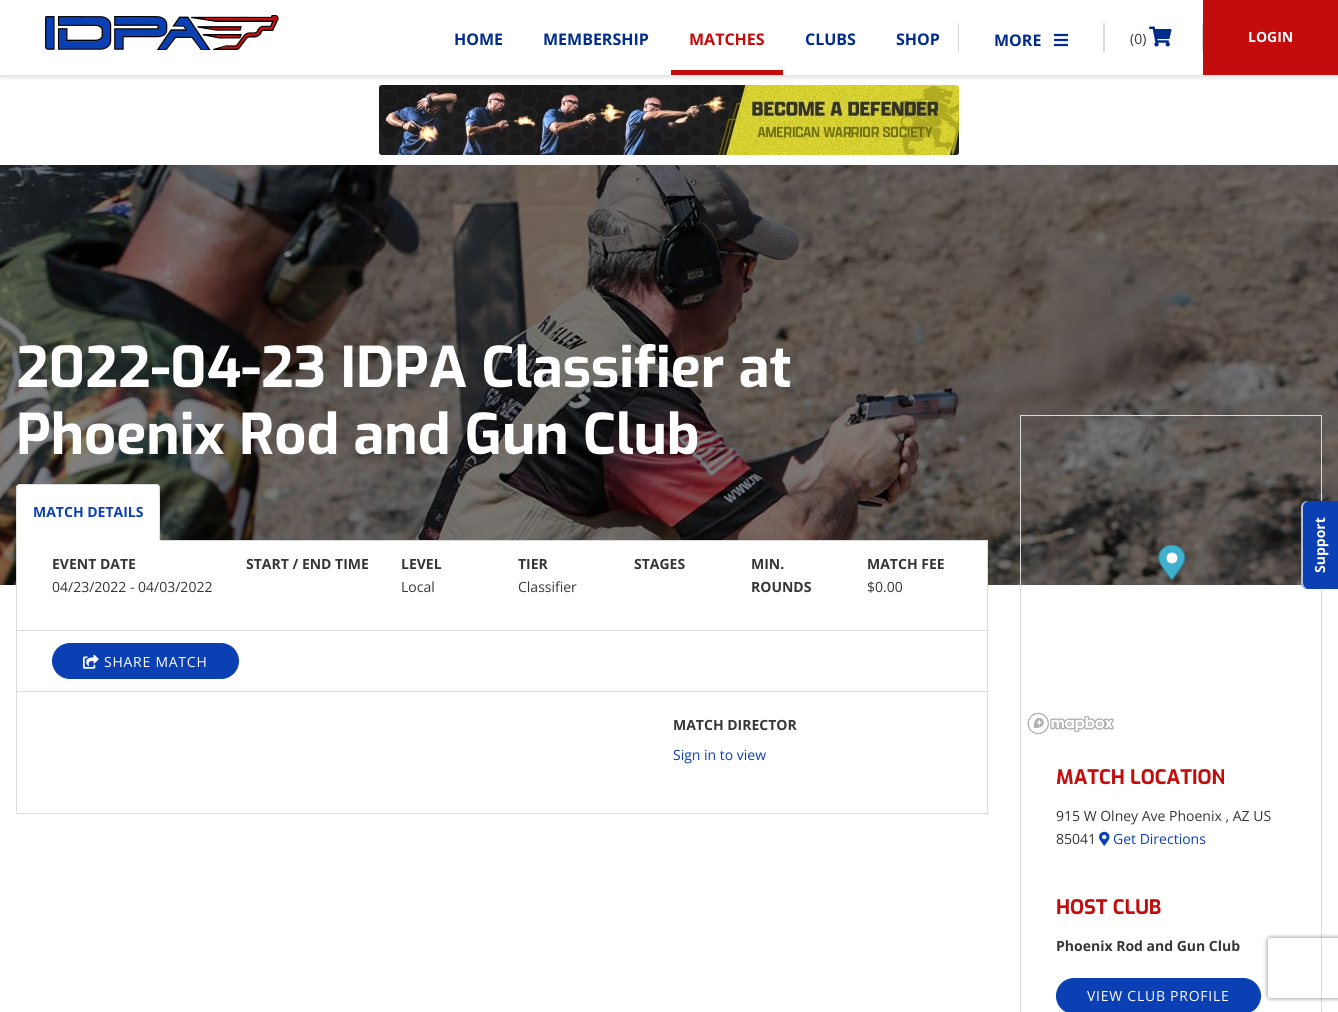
import math
import cairo

surface = cairo.ImageSurface(cairo.FORMAT_RGB24, 1338, 1012)
c = cairo.Context(surface)
options = cairo.FontOptions()
options.set_hint_metrics(cairo.HINT_METRICS_OFF)
options.set_hint_style(cairo.HINT_STYLE_NONE)
c.set_font_options(options)
c.set_miter_limit(4)
def C(code):
 c.set_source_rgb(*(v / 255 for v in bytes.fromhex(code[-6:])))
def F(family, size, italic, bold):
 c.select_font_face(family, cairo.FONT_SLANT_ITALIC if italic else cairo.FONT_SLANT_NORMAL, cairo.FONT_WEIGHT_BOLD if bold else cairo.FONT_WEIGHT_NORMAL)
 c.set_font_size(size)
def T(x, y, s):
 c.move_to(x, y)
 c.show_text(s)
def L(x, y, s, letter, word):
 c.move_to(x, y)
 for ch in s:
  c.show_text(ch)
  c.rel_move_to(letter + word * (ch == ' '), 0)
def R(x, y, w, h):
 c.rectangle(x, y, w, h)
 c.fill()
def Q(x, y, w, h, r):
 c.new_sub_path()
 for i, (u, v) in enumerate([(x + w - r, y + h - r), (x + r, y + h - r), (x + r, y + r), (x + w - r, y + r)]):
  c.arc(u, v, r, i * math.pi / 2, (i + 1) * math.pi / 2)
 c.close_path()
def S(x, y, w, h, r, blur, alpha):
 c.push_group_with_content(cairo.CONTENT_ALPHA)
 c.set_operator(cairo.OPERATOR_SOURCE)
 for i in range(15, -16, -2):
  e = blur * i / 6
  if min(w, h) + 2 * e > 0:
   c.set_source_rgba(0, 0, 0, alpha * math.erfc((i - 1) / 8.5) / 2)
   Q(x - e, y - e, w + 2 * e, h + 2 * e, max(0, min(r + e + blur * .6, min(w, h) / 2 + e)))
   c.fill()
 c.mask(c.pop_group())
def I(path, x, y, w, h):
 c.save()
 c.set_source_surface(cairo.ImageSurface.create_from_png(path), x, y)
 c.rectangle(x, y, w, h)
 c.fill()
 c.restore()
C('ffffff')
c.paint()
I('4.png',379,85,580,70)
c.save()
c.rectangle(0,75,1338,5)
c.clip()
C('000000')
S(0,2,1338,75,0,3,.15)
c.restore()
I('1.png',45,15,234,35)
F('Open Sans',16,0,1)
C('002c8d')
T(454,45,'HOME')
T(543,45,'MEMBERSHIP')
C('c40c0c')
R(671,70,112,5)
T(689,45,'MATCHES')
C('002c8d')
T(805,45,'CLUBS')
T(896,45,'SHOP')
C('dbdbdb')
R(1103,23,2,30)
R(958,23,1,30)
C('002c8d')
T(994,46,'MORE')
I('2.png',1054,33,14,14)
C('dbdbdb')
R(1202,23,1,30)
F('Open Sans',14,0,0)
C('363636')
T(1130,44,'(0)')
I('3.png',1149,26,23,21)
C('c40c0c')
R(1203,0,135,75)
F('Open Sans',14,0,1)
C('ffffff')
T(1248,42,'LOGIN')
I('5.png',0,165,1338,420)
F('Exo',56,0,1)
T(16,387,'2022-04-23 IDPA Classifier at')
T(16,454,'Phoenix Rod and Gun Club')
c.rectangle(16.5,540.5,971,273)
C('dbdbdb')
c.set_line_width(1)
c.stroke()
C('ffffff')
c.new_path()
c.move_to(20,484)
c.line_to(156,484)
c.curve_to(158,484,160,486,160,488)
c.line_to(160,541)
c.line_to(16,541)
c.line_to(16,488)
c.curve_to(16,486,18,484,20,484)
c.close_path()
c.fill()
C('dee2e6')
c.new_path()
c.move_to(20,484)
c.line_to(17,485)
c.line_to(18,486)
c.line_to(20,485)
c.line_to(156,485)
c.line_to(158,486)
c.line_to(159,485)
c.line_to(156,484)
c.close_path()
c.fill()
c.new_path()
c.move_to(160,541)
c.line_to(160,488)
c.line_to(159,485)
c.line_to(158,486)
c.curve_to(160,488,159,534,159,540)
c.close_path()
c.fill()
C('ffffff')
c.new_path()
c.move_to(160,541)
c.line_to(159,540)
c.line_to(17,540)
c.line_to(16,541)
c.close_path()
c.fill()
C('dee2e6')
c.new_path()
c.move_to(16,541)
c.line_to(17,540)
c.curve_to(17,534,16,488,18,486)
c.line_to(17,485)
c.line_to(16,488)
c.close_path()
c.fill()
F('Open Sans',14,0,1)
C('0b40b5')
T(33,517,'MATCH DETAILS')
C('ffffff')
R(17,541,970,44)
C('dbdbdb')
R(17,630,970,1)
C('363636')
T(52,569,'EVENT DATE')
F('Open Sans',14,0,0)
T(52,592,'04/23/2022 - 04/03/2022')
F('Open Sans',14,0,1)
T(246,569,'START / END TIME')
T(401,569,'LEVEL')
F('Open Sans',14,0,0)
T(401,592,'Local')
F('Open Sans',14,0,1)
T(518,569,'TIER')
F('Open Sans',14,0,0)
T(518,592,'Classifier')
F('Open Sans',14,0,1)
T(634,569,'STAGES')
T(751,569,'MIN.')
T(751,592,'ROUNDS')
T(867,569,'MATCH FEE')
F('Open Sans',14,0,0)
T(867,592,'$0.00')
C('dbdbdb')
R(17,691,970,1)
C('0b40b5')
Q(52.5,643.5,186,35,17.5)
c.fill_preserve()
c.stroke()
I('6.png',83,654,16,15)
C('ffffff')
L(104,667,'SHARE MATCH',.75,0)
F('Open Sans',14,0,1)
C('363636')
T(673,730,'MATCH DIRECTOR')
F('Open Sans',14,0,0)
C('0b40b5')
T(673,760,'Sign in to view')
c.rectangle(1020.5,415.5,301,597)
C('dbdbdb')
c.stroke()
I('7.png',1158,545,27,40)
I('8.png',1027,712,87,23)
F('Exo',20,0,1)
C('c40c0c')
T(1056,784,'MATCH LOCATION')
F('Open Sans',14,0,0)
C('363636')
T(1056,821,'915 W Olney Ave Phoenix , AZ US')
T(1056,844,'85041')
I('9.png',1099,831,11,15)
C('0b40b5')
T(1113,844,'Get Directions')
F('Exo',20,0,1)
C('c40c0c')
T(1056,914,'HOST CLUB')
F('Open Sans',14,0,1)
C('363636')
T(1056,951,'Phoenix Rod and Gun Club')
C('0b40b5')
Q(1056.5,978.5,204,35,17.5)
c.fill_preserve()
c.stroke()
F('Open Sans',14,0,0)
C('ffffff')
L(1087,1001,'VIEW CLUB PROFILE',.75,0)
C('000000')
S(1277,525,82,39,6,5,.1)
C('0b40b5')
c.new_path()
c.move_to(1301,583)
c.line_to(1301,507)
c.curve_to(1301,504,1304,501,1307,501)
c.line_to(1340,501)
c.line_to(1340,589)
c.line_to(1307,589)
c.curve_to(1304,589,1301,586,1301,583)
c.close_path()
c.fill()
c.set_source_rgba(1,1,1,0.7)
c.new_path()
c.move_to(1303,583)
c.line_to(1303,507)
c.curve_to(1303,504,1306,501,1309,501)
c.line_to(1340,501)
c.line_to(1307,501)
c.curve_to(1304,501,1301,504,1301,507)
c.line_to(1301,583)
c.curve_to(1301,586,1304,589,1307,589)
c.curve_to(1305,588,1303,585,1303,583)
c.close_path()
c.fill()
c.set_source_rgba(0,0,0,0.08)
c.new_path()
c.move_to(1302,583)
c.line_to(1302,507)
c.curve_to(1302,504,1305,501,1308,501)
c.line_to(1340,501)
c.line_to(1307,501)
c.curve_to(1304,501,1301,504,1301,507)
c.line_to(1301,583)
c.curve_to(1301,585,1303,588,1306,588)
c.curve_to(1304,587,1302,585,1302,583)
c.close_path()
c.fill()
F('Open Sans',14,0,1)
C('ffffff')
c.save()
c.translate(1325,573)
c.rotate(-90 * math.pi / 180)
T(0,0,'Support')
c.restore()
c.save()
c.set_fill_rule(cairo.FILL_RULE_EVEN_ODD)
c.new_path()
c.move_to(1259,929)
c.line_to(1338,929)
c.line_to(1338,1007)
c.line_to(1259,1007)
c.close_path()
c.move_to(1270,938)
c.line_to(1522,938)
c.curve_to(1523,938,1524,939,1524,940)
c.line_to(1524,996)
c.curve_to(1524,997,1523,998,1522,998)
c.line_to(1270,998)
c.curve_to(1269,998,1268,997,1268,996)
c.line_to(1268,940)
c.curve_to(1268,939,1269,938,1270,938)
c.close_path()
c.clip()
C('808080')
S(1268,938,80,60,2,2.5,1)
c.restore()
surface.write_to_png('o.png')
